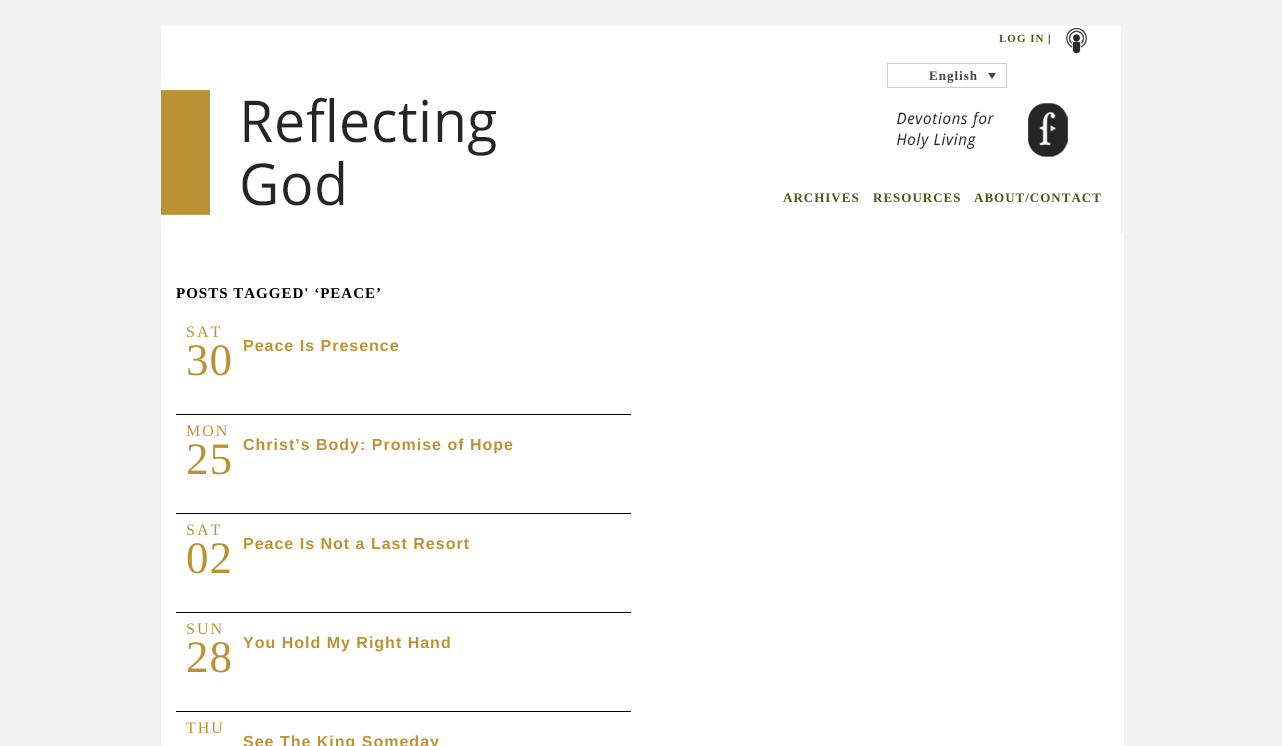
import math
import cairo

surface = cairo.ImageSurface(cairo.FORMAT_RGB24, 1282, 746)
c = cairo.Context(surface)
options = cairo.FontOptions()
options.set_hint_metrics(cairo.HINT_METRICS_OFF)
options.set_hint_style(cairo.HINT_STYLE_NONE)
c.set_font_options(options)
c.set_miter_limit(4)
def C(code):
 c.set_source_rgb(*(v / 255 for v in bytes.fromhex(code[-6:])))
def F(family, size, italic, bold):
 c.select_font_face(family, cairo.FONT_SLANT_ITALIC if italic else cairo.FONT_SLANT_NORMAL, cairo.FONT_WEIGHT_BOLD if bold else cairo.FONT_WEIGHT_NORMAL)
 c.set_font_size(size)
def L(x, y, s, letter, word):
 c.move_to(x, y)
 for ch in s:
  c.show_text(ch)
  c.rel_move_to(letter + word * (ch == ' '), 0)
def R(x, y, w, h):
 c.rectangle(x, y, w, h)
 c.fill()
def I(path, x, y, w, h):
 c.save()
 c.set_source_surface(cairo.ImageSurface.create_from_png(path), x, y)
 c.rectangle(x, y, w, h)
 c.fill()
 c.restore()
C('f2f2f2')
c.paint()
I('1.png',161,26,960,208)
F('Liberation Serif',11,0,1)
C('505613')
L(999,42,'LOG IN',1,0)
C('000000')
L(1048,42,'|',1,0)
I('2.png',1066,28,21,25)
c.rectangle(887.5,63.5,119,24)
C('cdcdcd')
c.set_line_width(1)
c.stroke()
F('Liberation Serif',13,0,1)
C('444444')
L(929,80,'English',1,0)
c.new_path()
c.move_to(988,73)
c.line_to(996,73)
c.line_to(992,79)
c.close_path()
c.fill()
C('505613')
L(783,202,'ARCHIVES',1,0)
L(873,202,'RESOURCES',1,0)
L(974,202,'ABOUT/CONTACT',1,0)
C('ffffff')
R(161,234,3,512)
R(164,234,960,512)
F('Liberation Serif',15,0,1)
C('000000')
L(176,298,'POSTS TAGGED\' ‘PEACE’',1,0)
F('Liberation Serif',16,0,0)
C('bc9133')
L(186,337,'SAT',2,0)
F('Liberation Serif',45,0,0)
L(186,375,'30',1,0)
F('Liberation Sans',16,0,1)
L(243,351,'Peace Is Presence',1,0)
C('000000')
R(176,414,455,1)
F('Liberation Serif',16,0,0)
C('bc9133')
L(186,436,'MON',2,0)
F('Liberation Serif',45,0,0)
L(186,474,'25',1,0)
F('Liberation Sans',16,0,1)
L(243,450,'Christ’s Body: Promise of Hope',1,0)
C('000000')
R(176,513,455,1)
F('Liberation Serif',16,0,0)
C('bc9133')
L(186,535,'SAT',2,0)
F('Liberation Serif',45,0,0)
L(186,573,'02',1,0)
F('Liberation Sans',16,0,1)
L(243,549,'Peace Is Not a Last Resort',1,0)
C('000000')
R(176,612,455,1)
F('Liberation Serif',16,0,0)
C('bc9133')
L(186,634,'SUN',2,0)
F('Liberation Serif',45,0,0)
L(186,672,'28',1,0)
F('Liberation Sans',16,0,1)
L(243,648,'You Hold My Right Hand',1,0)
C('000000')
R(176,711,455,1)
F('Liberation Serif',16,0,0)
C('bc9133')
L(186,733,'THU',2,0)
F('Liberation Sans',16,0,1)
L(243,747,'See The King Someday',1,0)
surface.write_to_png('o.png')
